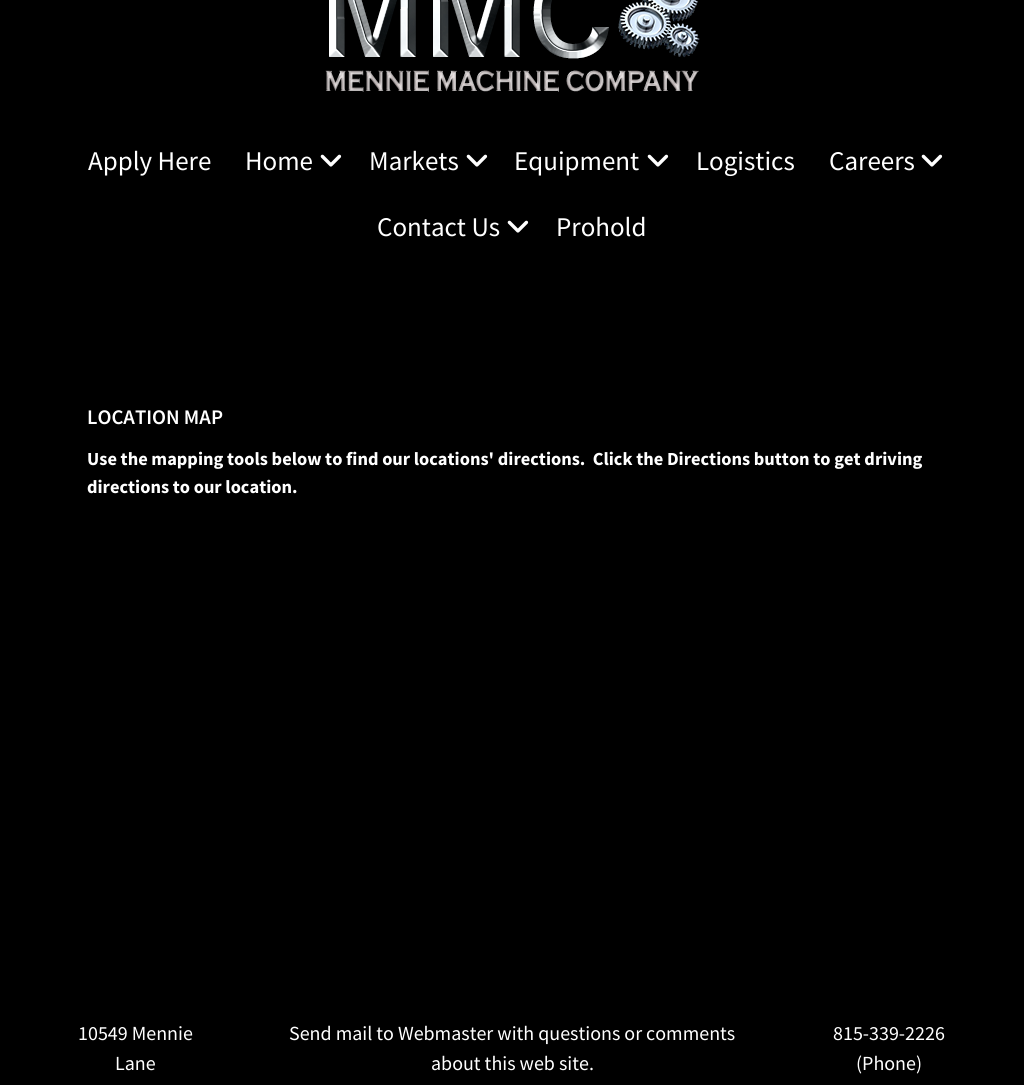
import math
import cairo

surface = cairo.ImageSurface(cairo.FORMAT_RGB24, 1024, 1085)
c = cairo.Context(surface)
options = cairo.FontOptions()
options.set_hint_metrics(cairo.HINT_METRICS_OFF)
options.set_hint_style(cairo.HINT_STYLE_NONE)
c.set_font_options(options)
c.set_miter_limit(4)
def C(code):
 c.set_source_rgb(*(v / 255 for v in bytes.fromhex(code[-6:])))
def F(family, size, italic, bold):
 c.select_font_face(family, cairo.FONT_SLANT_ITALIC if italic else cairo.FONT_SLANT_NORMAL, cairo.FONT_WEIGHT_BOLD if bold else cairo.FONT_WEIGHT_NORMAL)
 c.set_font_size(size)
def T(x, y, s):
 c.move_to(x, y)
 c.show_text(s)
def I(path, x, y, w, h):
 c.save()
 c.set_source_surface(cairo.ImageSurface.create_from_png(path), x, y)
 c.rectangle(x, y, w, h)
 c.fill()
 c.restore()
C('000000')
c.paint()
I('1.png',325,0,375,92)
F('Source Sans Pro',27,0,0)
C('ffffff')
T(88,170,'Apply Here')
T(245,170,'Home')
I('2.png',320,154,22,13)
T(369,170,'Markets')
I('2.png',466,154,22,13)
T(514,170,'Equipment')
I('2.png',647,154,22,13)
T(696,170,'Logistics')
T(829,170,'Careers')
I('2.png',921,154,22,13)
T(377,236,'Contact Us')
I('2.png',507,220,22,13)
T(556,236,'Prohold')
F('Source Sans Pro SemiBold',20.75,0,0)
T(87,424,'LOCATION MAP')
F('Source Sans Pro',18.4,0,1)
T(87,465,'Use the mapping tools below to find our locations\' directions.  Click the Directions button to get driving')
T(87,493,'directions to our location.')
F('Source Sans Pro',20,0,0)
T(78,1040,'10549 Mennie')
T(115,1070,'Lane')
T(289,1040,'Send mail to Webmaster with questions or comments')
T(431,1070,'about this web site.')
T(833,1040,'815-339-2226')
T(856,1070,'(Phone)')
surface.write_to_png('o.png')
